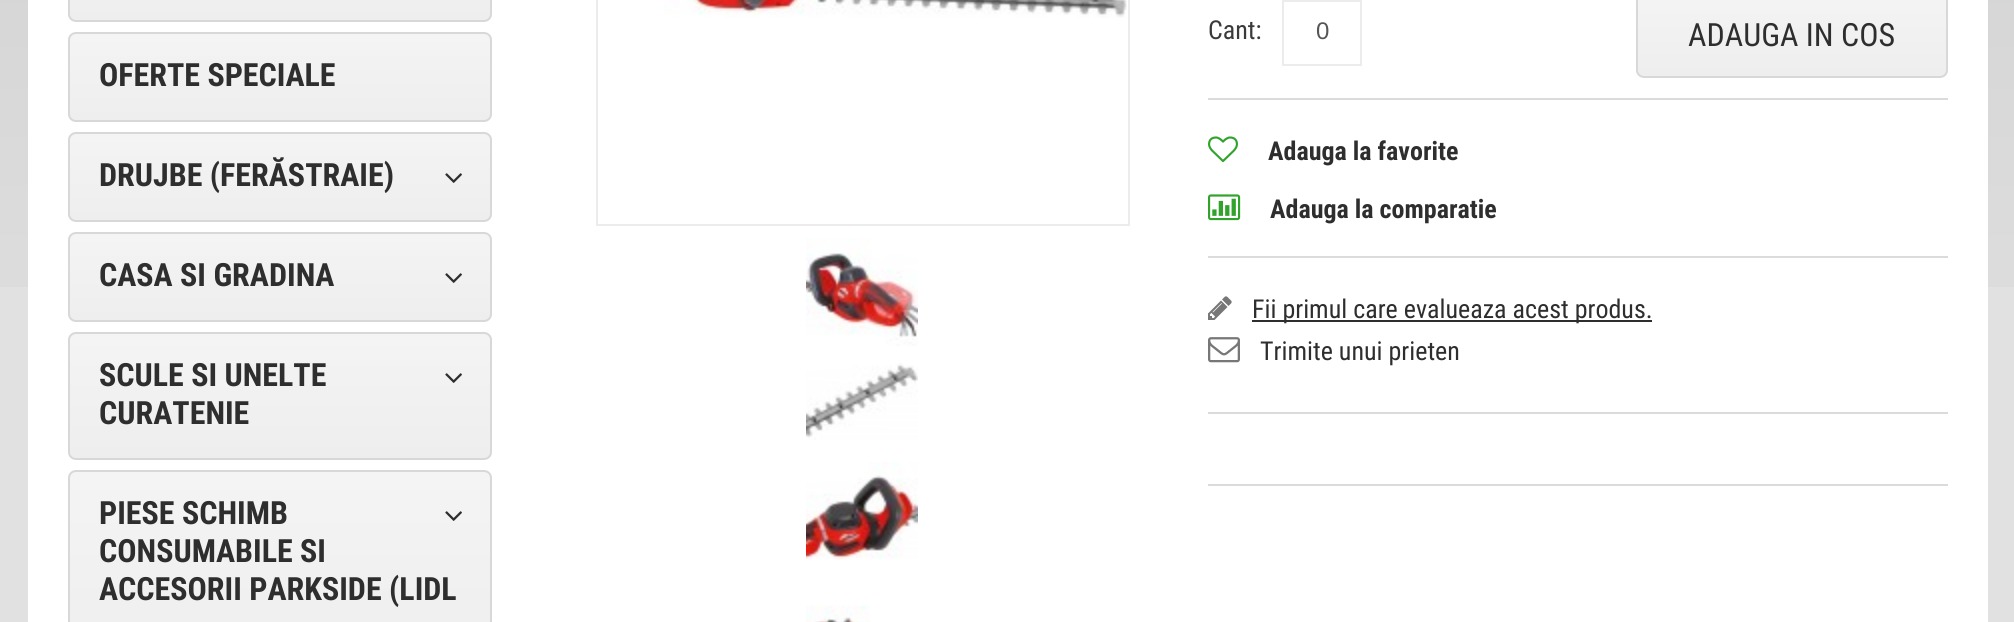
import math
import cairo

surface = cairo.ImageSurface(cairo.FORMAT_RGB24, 2014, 622)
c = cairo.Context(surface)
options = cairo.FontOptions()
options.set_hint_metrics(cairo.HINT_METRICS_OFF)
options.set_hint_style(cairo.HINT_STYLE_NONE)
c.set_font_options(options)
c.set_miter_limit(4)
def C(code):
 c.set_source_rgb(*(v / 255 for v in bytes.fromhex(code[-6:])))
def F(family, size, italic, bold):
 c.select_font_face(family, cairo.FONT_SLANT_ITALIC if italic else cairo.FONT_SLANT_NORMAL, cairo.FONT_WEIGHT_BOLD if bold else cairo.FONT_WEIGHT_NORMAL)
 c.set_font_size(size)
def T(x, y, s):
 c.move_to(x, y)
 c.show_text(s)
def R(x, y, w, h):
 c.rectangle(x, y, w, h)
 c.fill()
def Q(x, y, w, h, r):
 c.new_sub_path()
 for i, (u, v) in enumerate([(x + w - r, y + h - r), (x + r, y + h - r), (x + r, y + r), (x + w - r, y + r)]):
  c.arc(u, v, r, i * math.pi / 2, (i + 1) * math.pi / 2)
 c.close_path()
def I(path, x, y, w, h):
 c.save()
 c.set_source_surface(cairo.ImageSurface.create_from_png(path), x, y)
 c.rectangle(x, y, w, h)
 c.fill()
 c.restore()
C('e1e1e1')
c.paint()
I('1.png',0,0,2014,287)
C('ffffff')
R(28,0,1960,622)
c.save()
Q(68,-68,424,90,8)
c.clip()
gradient = cairo.LinearGradient(280,-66,280,20)
gradient.add_color_stop_rgba(0,0.961,0.957,0.957,1)
gradient.add_color_stop_rgba(1,0.937,0.933,0.933,1)
c.set_source(gradient)
R(68,0,424,20)
c.restore()
Q(69,-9,422,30,7)
C('d8d8d8')
c.stroke()
c.save()
Q(68,32,424,90,8)
c.clip()
gradient = cairo.LinearGradient(280,34,280,120)
gradient.add_color_stop_rgba(0,0.961,0.957,0.957,1)
gradient.add_color_stop_rgba(1,0.937,0.933,0.933,1)
c.set_source(gradient)
R(68,34,424,86)
c.restore()
Q(69,33,422,88,7)
c.stroke()
F('Roboto Condensed',32,0,1)
C('2e2e2e')
T(99,86,'OFERTE SPECIALE')
c.save()
Q(68,132,424,90,8)
c.clip()
gradient = cairo.LinearGradient(280,134,280,220)
gradient.add_color_stop_rgba(0,0.961,0.957,0.957,1)
gradient.add_color_stop_rgba(1,0.937,0.933,0.933,1)
c.set_source(gradient)
R(68,134,424,86)
c.restore()
Q(69,133,422,88,7)
C('d8d8d8')
c.stroke()
C('2e2e2e')
T(99,186,'DRUJBE (FERĂSTRAIE)')
I('2.png',445,173,17,10)
c.save()
Q(68,232,424,90,8)
c.clip()
gradient = cairo.LinearGradient(280,234,280,320)
gradient.add_color_stop_rgba(0,0.961,0.957,0.957,1)
gradient.add_color_stop_rgba(1,0.937,0.933,0.933,1)
c.set_source(gradient)
R(68,234,424,86)
c.restore()
Q(69,233,422,88,7)
C('d8d8d8')
c.stroke()
C('2e2e2e')
T(99,286,'CASA SI GRADINA')
I('2.png',445,273,17,10)
c.save()
Q(68,332,424,128,8)
c.clip()
gradient = cairo.LinearGradient(280,334,280,458)
gradient.add_color_stop_rgba(0,0.961,0.957,0.957,1)
gradient.add_color_stop_rgba(1,0.937,0.933,0.933,1)
c.set_source(gradient)
R(68,334,424,124)
c.restore()
Q(69,333,422,126,7)
C('d8d8d8')
c.stroke()
C('2e2e2e')
T(99,386,'SCULE SI UNELTE')
T(99,424,'CURATENIE')
I('3.png',445,373,17,10)
c.save()
Q(68,470,424,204,8)
c.clip()
gradient = cairo.LinearGradient(280,472,280,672)
gradient.add_color_stop_rgba(0,0.961,0.957,0.957,1)
gradient.add_color_stop_rgba(1,0.937,0.933,0.933,1)
c.set_source(gradient)
R(68,472,424,150)
c.restore()
Q(69,471,422,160,7)
C('d8d8d8')
c.stroke()
C('2e2e2e')
T(99,524,'PIESE SCHIMB')
T(99,562,'CONSUMABILE SI')
T(99,600,'ACCESORII PARKSIDE (LIDL')
I('4.png',445,511,17,10)
c.rectangle(597,-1,532,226)
C('ececec')
c.stroke()
I('5.png',664,0,463,18)
I('6.png',806,238,112,108)
I('7.png',806,363,112,77)
I('8.png',806,462,112,98)
I('9.png',806,605,64,17)
F('Roboto Condensed',26,0,0)
C('3a3a3a')
T(1208,39,'Cant:')
C('ececec')
R(1284,0,76,2)
c.rectangle(1283,-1,78,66)
c.stroke()
F('Liberation Sans',24,0,0)
C('555555')
T(1316,39,'0')
c.save()
Q(1636,-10,312,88,8)
c.clip()
gradient = cairo.LinearGradient(1792,-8,1792,76)
gradient.add_color_stop_rgba(0,0.961,0.957,0.957,1)
gradient.add_color_stop_rgba(1,0.937,0.933,0.933,1)
c.set_source(gradient)
R(1636,0,312,76)
c.restore()
Q(1637,-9,310,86,7)
C('d8d8d8')
c.stroke()
F('Roboto Condensed',32,0,0)
C('2e2e2e')
T(1688,46,'ADAUGA IN COS')
C('dbdbdb')
R(1208,98,740,2)
R(1208,256,740,2)
I('10.png',1208,136,30,27)
F('Roboto Condensed',26,0,1)
C('2e2e2e')
T(1268,160,'Adauga la favorite')
I('11.png',1208,194,33,27)
T(1270,218,'Adauga la comparatie')
C('dbdbdb')
R(1208,412,740,2)
I('12.png',1208,296,24,24)
C('2e2e2e')
R(1252,320,400,2)
F('Roboto Condensed',26,0,0)
T(1252,318,'Fii primul care evalueaza acest produs.')
I('13.png',1208,337,32,26)
T(1260,360,'Trimite unui prieten')
C('dbdbdb')
R(1208,484,740,2)
surface.write_to_png('o.png')
